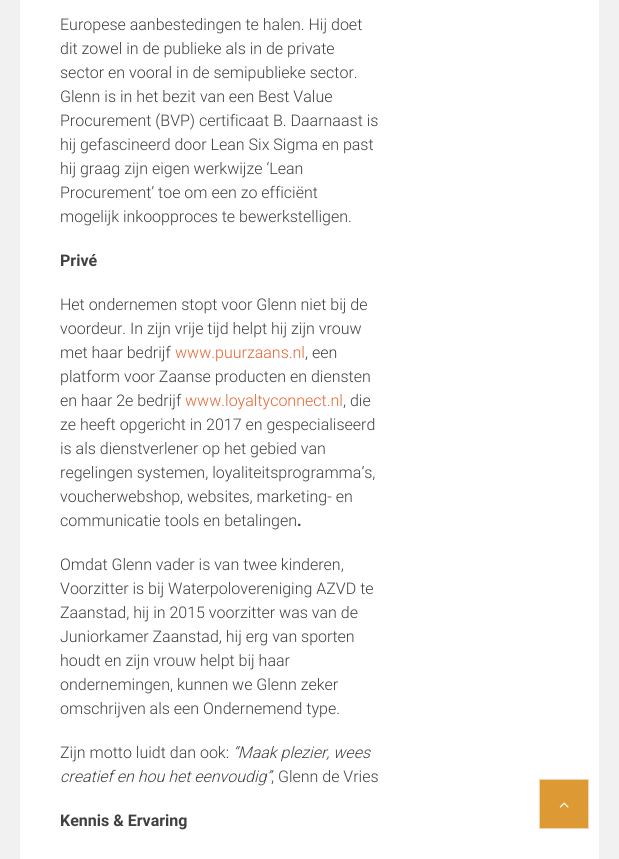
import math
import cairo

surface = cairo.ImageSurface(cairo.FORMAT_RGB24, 619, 859)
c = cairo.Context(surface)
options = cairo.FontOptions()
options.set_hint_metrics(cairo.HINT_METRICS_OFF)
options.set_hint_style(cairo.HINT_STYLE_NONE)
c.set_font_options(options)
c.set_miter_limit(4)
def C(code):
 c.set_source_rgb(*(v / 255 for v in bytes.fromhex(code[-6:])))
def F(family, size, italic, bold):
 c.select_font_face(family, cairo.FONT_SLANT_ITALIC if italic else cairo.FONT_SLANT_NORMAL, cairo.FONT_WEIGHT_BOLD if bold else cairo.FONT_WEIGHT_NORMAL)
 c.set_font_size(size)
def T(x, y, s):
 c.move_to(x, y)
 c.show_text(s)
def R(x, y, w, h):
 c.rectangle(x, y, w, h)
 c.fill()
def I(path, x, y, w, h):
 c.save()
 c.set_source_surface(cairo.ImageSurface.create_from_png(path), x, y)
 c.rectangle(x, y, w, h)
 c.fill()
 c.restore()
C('f1f1f1')
c.paint()
C('ffffff')
R(20,0,579,859)
F('Roboto Light',16,0,0)
C('404040')
T(60,30,'Europese aanbestedingen te halen. Hij doet')
T(60,54,'dit zowel in de publieke als in de private')
T(60,78,'sector en vooral in de semipublieke sector.')
T(60,102,'Glenn is in het bezit van een Best Value')
T(60,126,'Procurement (BVP) certificaat B. Daarnaast is')
T(60,150,'hij gefascineerd door Lean Six Sigma en past')
T(60,174,'hij graag zijn eigen werkwijze ‘Lean')
T(60,198,'Procurement’ toe om een zo efficiënt')
T(60,222,'mogelijk inkoopproces te bewerkstelligen.')
F('Roboto',16,0,1)
T(60,266,'Privé')
F('Roboto Light',16,0,0)
T(60,310,'Het ondernemen stopt voor Glenn niet bij de')
T(60,334,'voordeur. In zijn vrije tijd helpt hij zijn vrouw')
T(60,358,'met haar bedrijf')
C('e66432')
T(175,358,'www.puurzaans.nl')
C('404040')
T(305,358,', een')
T(60,382,'platform voor Zaanse producten en diensten')
T(60,406,'en haar 2e bedrijf')
C('e66432')
T(185,406,'www.loyaltyconnect.nl')
C('404040')
T(343,406,', die')
T(60,430,'ze heeft opgericht in 2017 en gespecialiseerd')
T(60,454,'is als dienstverlener op het gebied van')
T(60,478,'regelingen systemen, loyaliteitsprogramma’s,')
T(60,502,'voucherwebshop, websites, marketing- en')
T(60,526,'communicatie tools en betalingen')
F('Roboto',16,0,1)
T(297,526,'.')
F('Roboto Light',16,0,0)
T(60,570,'Omdat Glenn vader is van twee kinderen,')
T(60,594,'Voorzitter is bij Waterpolovereniging AZVD te')
T(60,618,'Zaanstad, hij in 2015 voorzitter was van de')
T(60,642,'Juniorkamer Zaanstad, hij erg van sporten')
T(60,666,'houdt en zijn vrouw helpt bij haar')
T(60,690,'ondernemingen, kunnen we Glenn zeker')
T(60,714,'omschrijven als een Ondernemend type.')
T(60,758,'Zijn motto luidt dan ook:')
F('Roboto Light',16,1,0)
T(233,758,'“Maak plezier, wees')
T(60,782,'creatief en hou het eenvoudig”')
F('Roboto Light',16,0,0)
T(271,782,', Glenn de Vries')
F('Roboto',16,0,1)
T(60,826,'Kennis & Ervaring')
C('dd9933')
c.rectangle(539.5,779.5,49,49)
c.fill_preserve()
C('f1d6ad')
c.set_line_width(1)
c.stroke()
I('1.png',559,802,10,6)
surface.write_to_png('o.png')
